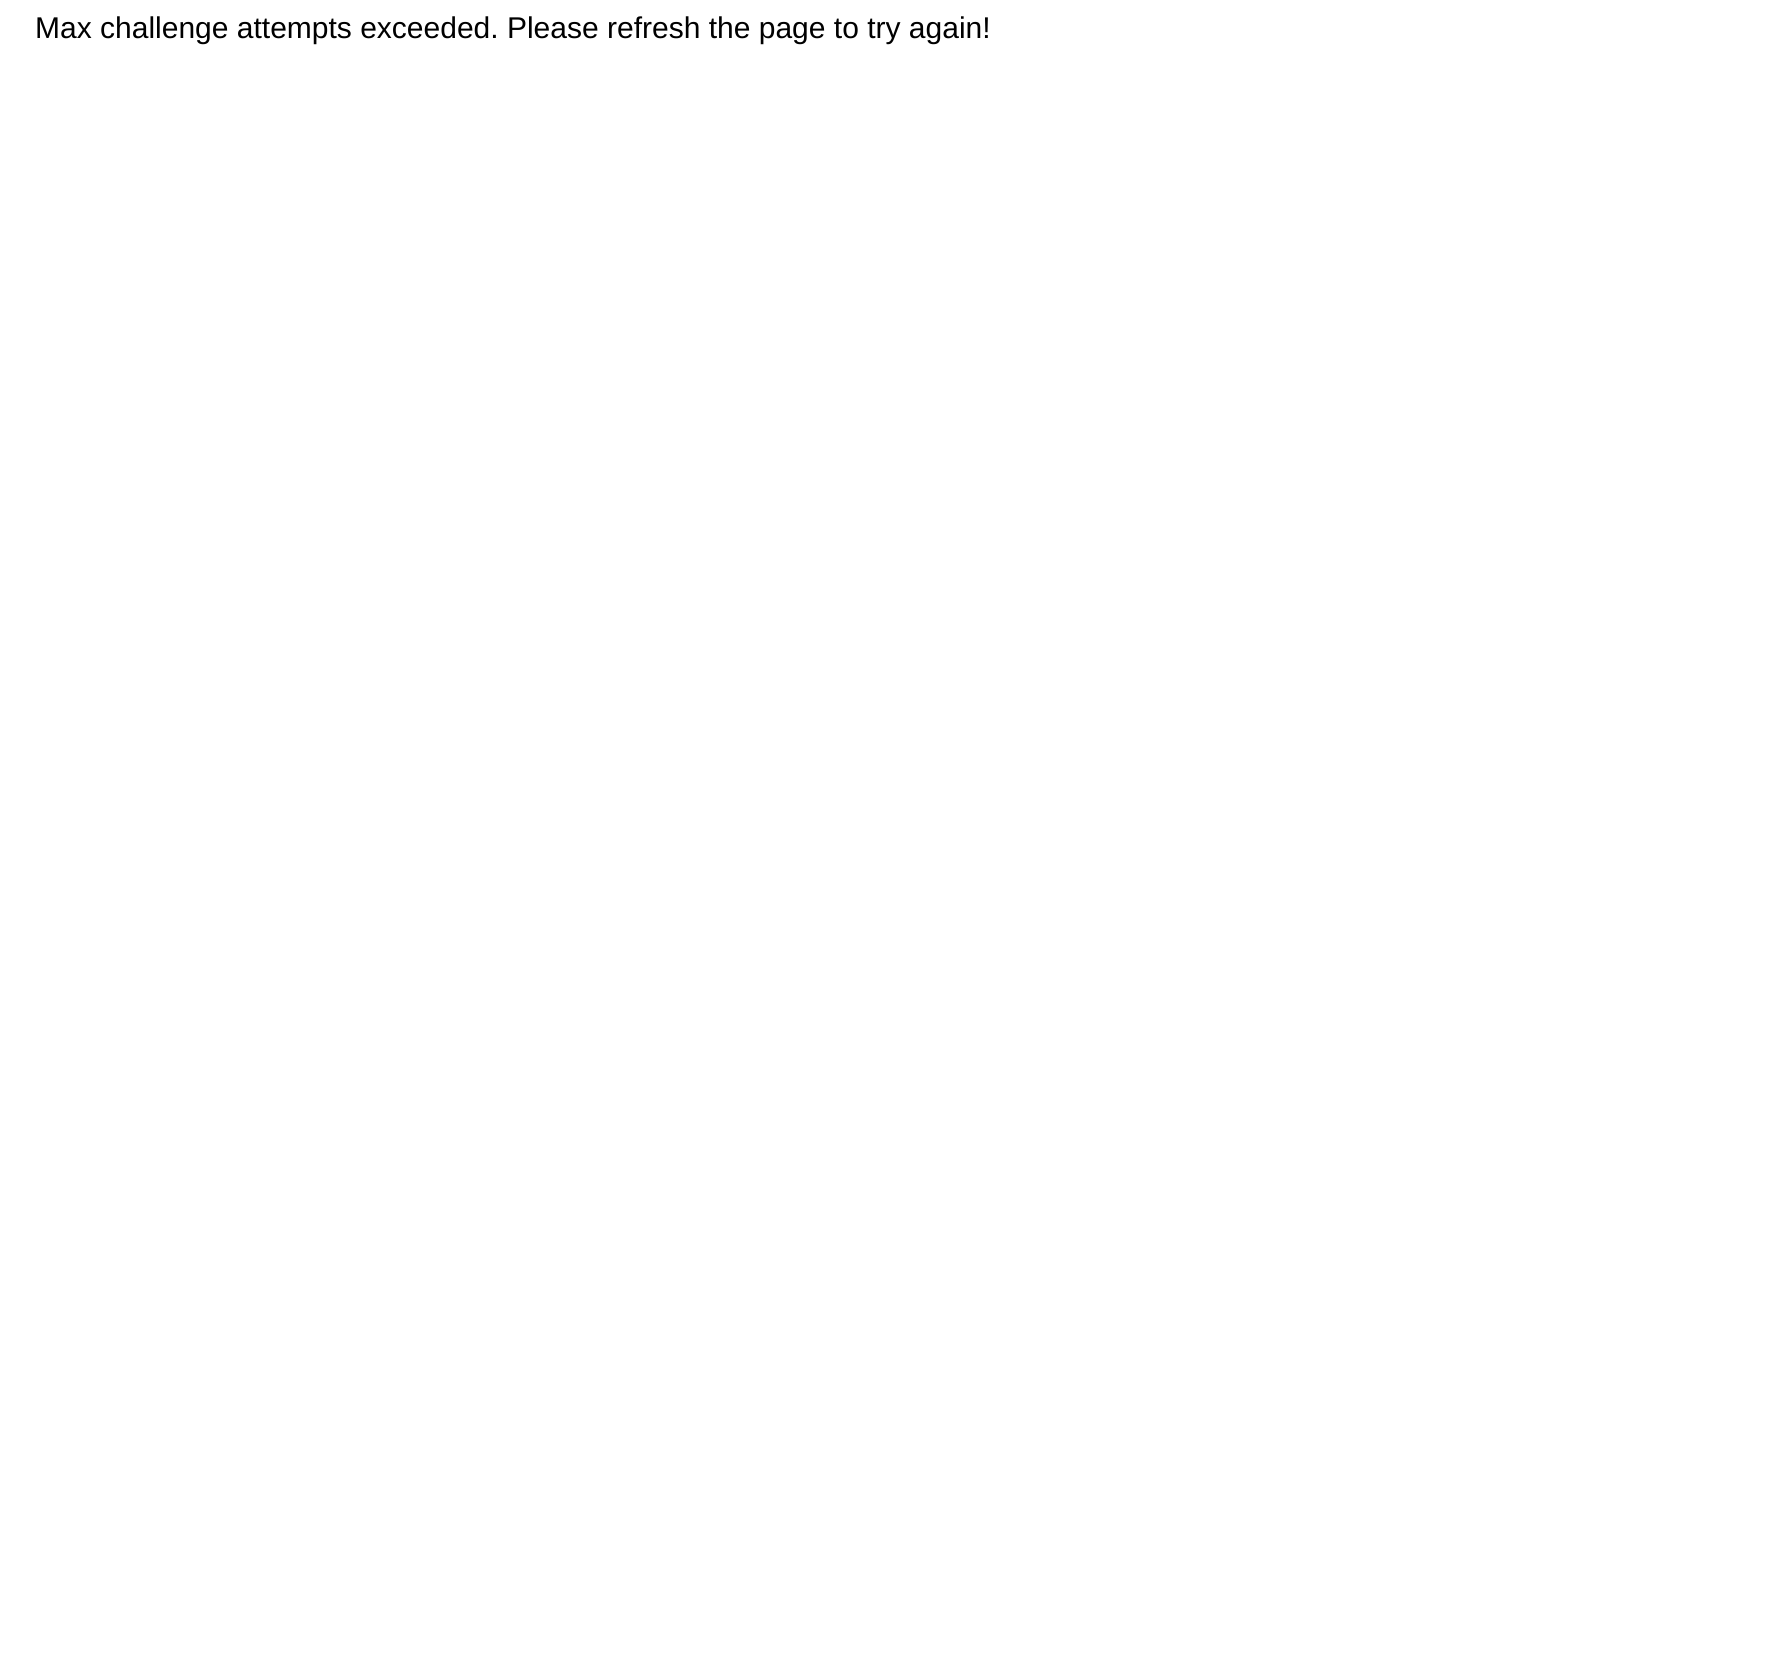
import math
import cairo

surface = cairo.ImageSurface(cairo.FORMAT_RGB24, 1780, 1669)
c = cairo.Context(surface)
options = cairo.FontOptions()
options.set_hint_metrics(cairo.HINT_METRICS_OFF)
options.set_hint_style(cairo.HINT_STYLE_NONE)
c.set_font_options(options)
c.set_miter_limit(4)
def C(code):
 c.set_source_rgb(*(v / 255 for v in bytes.fromhex(code[-6:])))
def F(family, size, italic, bold):
 c.select_font_face(family, cairo.FONT_SLANT_ITALIC if italic else cairo.FONT_SLANT_NORMAL, cairo.FONT_WEIGHT_BOLD if bold else cairo.FONT_WEIGHT_NORMAL)
 c.set_font_size(size)
def T(x, y, s):
 c.move_to(x, y)
 c.show_text(s)
C('ffffff')
c.paint()
F('Liberation Sans',30,0,0)
C('000000')
T(35,38,'Max challenge attempts exceeded. Please refresh the page to try again!')
surface.write_to_png('o.png')
